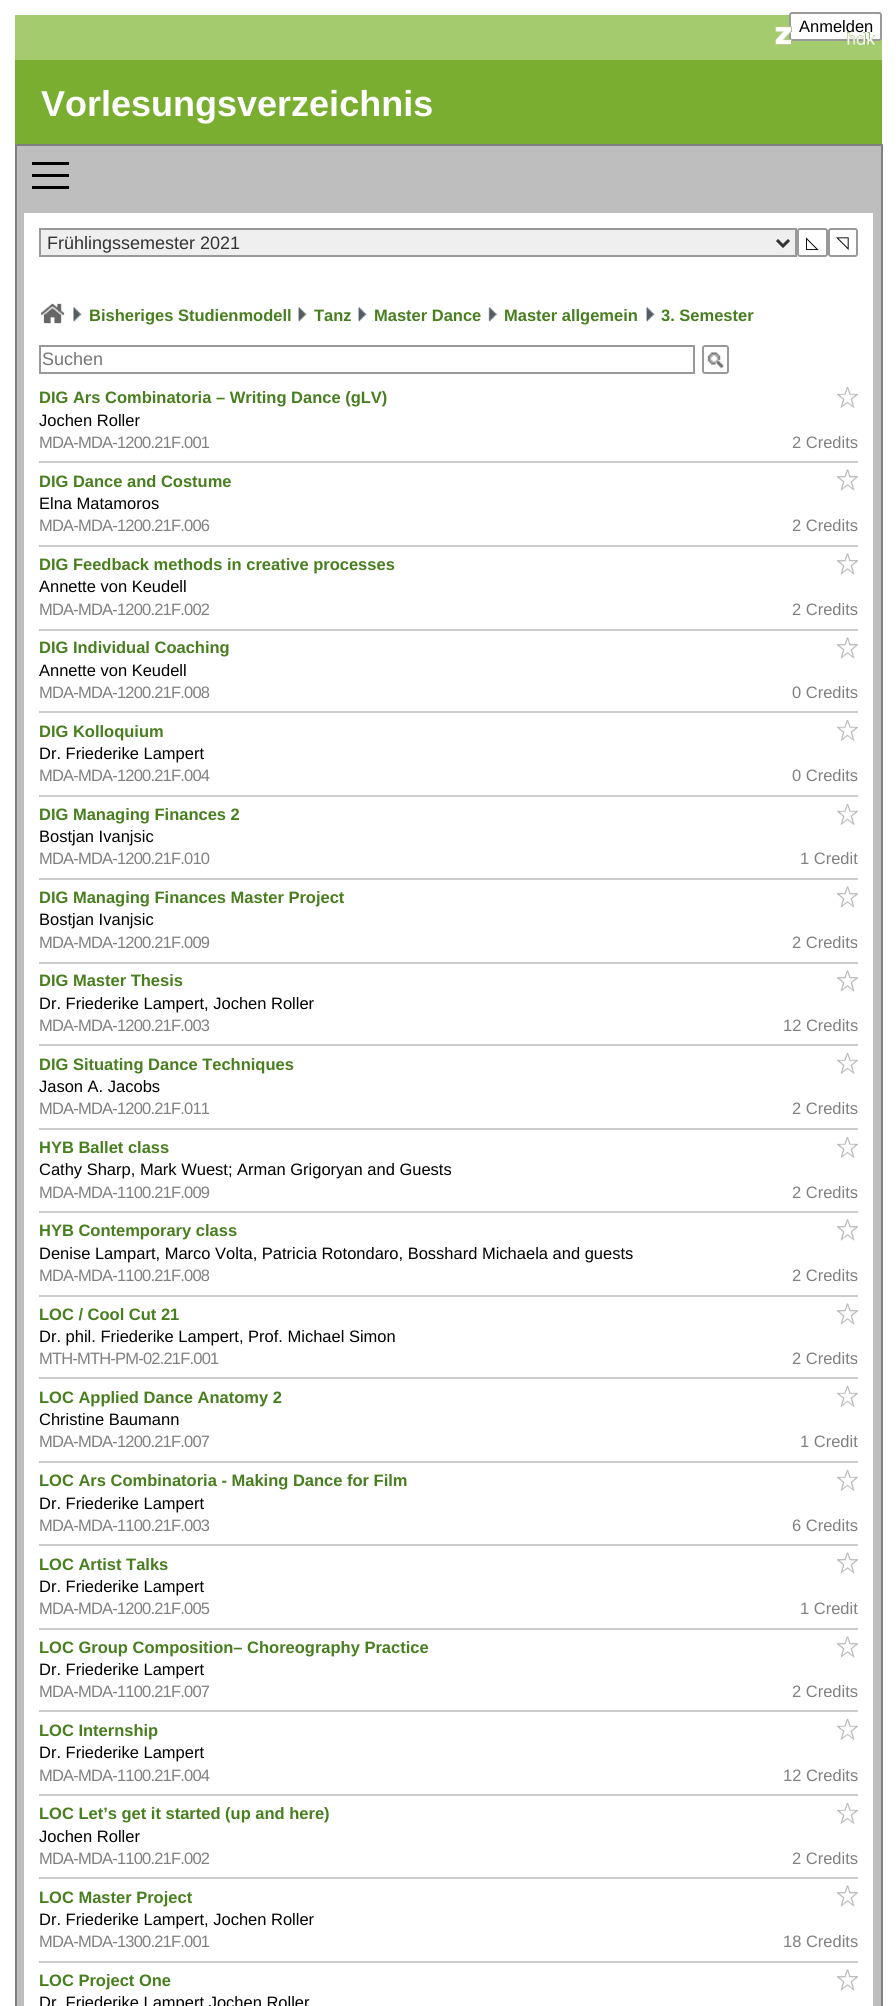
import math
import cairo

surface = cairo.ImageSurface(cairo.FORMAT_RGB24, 896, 2006)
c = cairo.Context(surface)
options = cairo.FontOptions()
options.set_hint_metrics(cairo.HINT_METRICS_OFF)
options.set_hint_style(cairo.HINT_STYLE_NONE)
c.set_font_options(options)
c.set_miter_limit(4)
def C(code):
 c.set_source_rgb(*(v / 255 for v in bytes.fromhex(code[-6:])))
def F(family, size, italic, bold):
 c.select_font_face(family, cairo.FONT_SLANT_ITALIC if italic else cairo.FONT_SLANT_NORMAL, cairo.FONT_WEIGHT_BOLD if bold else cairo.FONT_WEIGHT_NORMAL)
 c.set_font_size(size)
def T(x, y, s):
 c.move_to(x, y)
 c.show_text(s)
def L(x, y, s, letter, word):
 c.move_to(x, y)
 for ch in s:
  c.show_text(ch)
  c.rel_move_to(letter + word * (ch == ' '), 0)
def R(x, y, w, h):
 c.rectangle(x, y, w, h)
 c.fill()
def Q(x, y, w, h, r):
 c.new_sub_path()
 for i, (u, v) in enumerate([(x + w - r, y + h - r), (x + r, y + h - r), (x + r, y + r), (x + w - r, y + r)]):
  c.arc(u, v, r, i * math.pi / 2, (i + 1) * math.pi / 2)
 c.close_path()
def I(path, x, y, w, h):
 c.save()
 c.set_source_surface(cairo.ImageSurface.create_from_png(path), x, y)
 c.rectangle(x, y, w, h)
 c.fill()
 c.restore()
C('ffffff')
c.paint()
C('a4cc6f')
R(15,15,867,45)
C('ffffff')
Q(790,13,91,27,2)
c.fill_preserve()
C('999999')
c.stroke()
F('Liberation Sans',16.5,0,0)
C('000000')
T(799,32,'Anmelden')
I('1.png',775,26,100,19)
C('79ae31')
R(15,60,867,84)
F('Liberation Sans',36,0,1)
C('ffffff')
T(41,116,'Vorlesungsverzeichnis')
C('bebebe')
R(17,146,864,1860)
C('808080')
R(15,144,867,2)
R(881,144,2,1862)
R(15,144,2,1862)
C('000000')
R(32,162,37,3)
R(32,174,37,3)
R(32,186,37,3)
C('ffffff')
R(24,213,849,1793)
C('efefef')
c.rectangle(40,229,756,27)
c.fill_preserve()
C('999999')
c.stroke()
c.new_path()
c.move_to(777,240)
c.line_to(783,246)
c.line_to(789,240)
C('333333')
c.set_line_width(3)
c.stroke()
F('Liberation Sans',18,0,0)
T(47,249,'Frühlingssemester 2021')
Q(798,229,29,27,2)
C('999999')
c.set_line_width(2)
c.stroke()
F('DejaVu Sans',16.5,0,0)
C('000000')
T(806,248,'◺')
Q(829,229,28,27,2)
C('999999')
c.stroke()
C('000000')
T(836,248,'◹')
I('2.png',41,303,24,21)
I('3.png',73,307,9,15)
F('Liberation Sans',16.5,0,1)
C('477e1e')
T(89,321,'Bisheriges Studienmodell')
I('4.png',298,307,9,15)
T(314,321,'Tanz')
I('4.png',358,307,9,15)
T(374,321,'Master Dance')
I('5.png',488,307,9,15)
T(504,321,'Master allgemein')
I('4.png',646,307,9,15)
T(661,321,'3. Semester')
c.rectangle(40,346,654,27)
C('999999')
c.stroke()
F('Liberation Sans',18,0,0)
C('757575')
T(42,365,'Suchen')
I('6.png',707,352,17,16)
Q(703,346,25,27,2)
C('999999')
c.stroke()
C('cccccc')
R(39,461,819,2)
F('Liberation Sans',16.5,0,1)
C('477e1e')
T(39,403,'DIG Ars Combinatoria – Writing Dance (gLV)')
I('7.png',837,387,21,21)
F('Liberation Sans',16.5,0,0)
C('000000')
T(39,426,'Jochen Roller')
C('808080')
L(39,448,'MDA-MDA-1200.21F.001',-.8,0)
T(792,448,'2 Credits')
C('cccccc')
R(39,545,819,2)
F('Liberation Sans',16.5,0,1)
C('477e1e')
T(39,487,'DIG Dance and Costume')
I('8.png',837,469,21,22)
F('Liberation Sans',16.5,0,0)
C('000000')
T(39,509,'Elna Matamoros')
C('808080')
L(39,531,'MDA-MDA-1200.21F.006',-.8,0)
T(792,531,'2 Credits')
C('cccccc')
R(39,629,819,2)
F('Liberation Sans',16.5,0,1)
C('477e1e')
T(39,570,'DIG Feedback methods in creative processes')
I('8.png',837,553,21,22)
F('Liberation Sans',16.5,0,0)
C('000000')
T(39,592,'Annette von Keudell')
C('808080')
L(39,615,'MDA-MDA-1200.21F.002',-.8,0)
T(792,615,'2 Credits')
C('cccccc')
R(39,711,819,2)
F('Liberation Sans',16.5,0,1)
C('477e1e')
T(39,653,'DIG Individual Coaching')
I('8.png',837,637,21,22)
F('Liberation Sans',16.5,0,0)
C('000000')
T(39,676,'Annette von Keudell')
C('808080')
L(39,698,'MDA-MDA-1200.21F.008',-.8,0)
T(792,698,'0 Credits')
C('cccccc')
R(39,795,819,2)
F('Liberation Sans',16.5,0,1)
C('477e1e')
T(39,737,'DIG Kolloquium')
I('7.png',837,720,21,21)
F('Liberation Sans',16.5,0,0)
C('000000')
T(39,759,'Dr. Friederike Lampert')
C('808080')
L(39,781,'MDA-MDA-1200.21F.004',-.8,0)
T(792,781,'0 Credits')
C('cccccc')
R(39,878,819,2)
F('Liberation Sans',16.5,0,1)
C('477e1e')
T(39,820,'DIG Managing Finances 2')
I('7.png',837,804,21,21)
F('Liberation Sans',16.5,0,0)
C('000000')
T(39,842,'Bostjan Ivanjsic')
C('808080')
L(39,864,'MDA-MDA-1200.21F.010',-.8,0)
T(800,864,'1 Credit')
C('cccccc')
R(39,962,819,2)
F('Liberation Sans',16.5,0,1)
C('477e1e')
T(39,903,'DIG Managing Finances Master Project')
I('8.png',837,886,21,22)
F('Liberation Sans',16.5,0,0)
C('000000')
T(39,925,'Bostjan Ivanjsic')
C('808080')
L(39,948,'MDA-MDA-1200.21F.009',-.8,0)
T(792,948,'2 Credits')
C('cccccc')
R(39,1044,819,2)
F('Liberation Sans',16.5,0,1)
C('477e1e')
T(39,986,'DIG Master Thesis')
I('8.png',837,970,21,22)
F('Liberation Sans',16.5,0,0)
C('000000')
T(39,1009,'Dr. Friederike Lampert, Jochen Roller')
C('808080')
L(39,1031,'MDA-MDA-1200.21F.003',-.8,0)
T(783,1031,'12 Credits')
C('cccccc')
R(39,1128,819,2)
F('Liberation Sans',16.5,0,1)
C('477e1e')
T(39,1070,'DIG Situating Dance Techniques')
I('7.png',837,1053,21,21)
F('Liberation Sans',16.5,0,0)
C('000000')
T(39,1092,'Jason A. Jacobs')
C('808080')
L(39,1114,'MDA-MDA-1200.21F.011',-.8,0)
T(792,1114,'2 Credits')
C('cccccc')
R(39,1211,819,2)
F('Liberation Sans',16.5,0,1)
C('477e1e')
T(39,1153,'HYB Ballet class')
I('7.png',837,1137,21,21)
F('Liberation Sans',16.5,0,0)
C('000000')
T(39,1175,'Cathy Sharp, Mark Wuest; Arman Grigoryan and Guests')
C('808080')
L(39,1198,'MDA-MDA-1100.21F.009',-.8,0)
T(792,1198,'2 Credits')
C('cccccc')
R(39,1295,819,2)
F('Liberation Sans',16.5,0,1)
C('477e1e')
T(39,1236,'HYB Contemporary class')
I('8.png',837,1219,21,22)
F('Liberation Sans',16.5,0,0)
C('000000')
T(39,1259,'Denise Lampart, Marco Volta, Patricia Rotondaro, Bosshard Michaela and guests')
C('808080')
L(39,1281,'MDA-MDA-1100.21F.008',-.8,0)
T(792,1281,'2 Credits')
C('cccccc')
R(39,1377,819,2)
F('Liberation Sans',16.5,0,1)
C('477e1e')
T(39,1320,'LOC / Cool Cut 21')
I('8.png',837,1303,21,22)
F('Liberation Sans',16.5,0,0)
C('000000')
T(39,1342,'Dr. phil. Friederike Lampert, Prof. Michael Simon')
C('808080')
L(39,1364,'MTH-MTH-PM-02.21F.001',-.8,0)
T(792,1364,'2 Credits')
C('cccccc')
R(39,1461,819,2)
F('Liberation Sans',16.5,0,1)
C('477e1e')
T(39,1403,'LOC Applied Dance Anatomy 2')
I('7.png',837,1386,21,21)
F('Liberation Sans',16.5,0,0)
C('000000')
T(39,1425,'Christine Baumann')
C('808080')
L(39,1447,'MDA-MDA-1200.21F.007',-.8,0)
T(800,1447,'1 Credit')
C('cccccc')
R(39,1544,819,2)
F('Liberation Sans',16.5,0,1)
C('477e1e')
T(39,1486,'LOC Ars Combinatoria - Making Dance for Film')
I('7.png',837,1470,21,21)
F('Liberation Sans',16.5,0,0)
C('000000')
T(39,1509,'Dr. Friederike Lampert')
C('808080')
L(39,1531,'MDA-MDA-1100.21F.003',-.8,0)
T(792,1531,'6 Credits')
C('cccccc')
R(39,1628,819,2)
F('Liberation Sans',16.5,0,1)
C('477e1e')
T(39,1570,'LOC Artist Talks')
I('8.png',837,1552,21,22)
F('Liberation Sans',16.5,0,0)
C('000000')
T(39,1592,'Dr. Friederike Lampert')
C('808080')
L(39,1614,'MDA-MDA-1200.21F.005',-.8,0)
T(800,1614,'1 Credit')
C('cccccc')
R(39,1710,819,2)
F('Liberation Sans',16.5,0,1)
C('477e1e')
T(39,1653,'LOC Group Composition– Choreography Practice')
I('8.png',837,1636,21,22)
F('Liberation Sans',16.5,0,0)
C('000000')
T(39,1675,'Dr. Friederike Lampert')
C('808080')
L(39,1697,'MDA-MDA-1100.21F.007',-.8,0)
T(792,1697,'2 Credits')
C('cccccc')
R(39,1794,819,2)
F('Liberation Sans',16.5,0,1)
C('477e1e')
T(39,1736,'LOC Internship')
I('7.png',837,1719,21,21)
F('Liberation Sans',16.5,0,0)
C('000000')
T(39,1758,'Dr. Friederike Lampert')
C('808080')
L(39,1781,'MDA-MDA-1100.21F.004',-.8,0)
T(783,1781,'12 Credits')
C('cccccc')
R(39,1877,819,2)
F('Liberation Sans',16.5,0,1)
C('477e1e')
T(39,1819,'LOC Let’s get it started (up and here)')
I('7.png',837,1803,21,21)
F('Liberation Sans',16.5,0,0)
C('000000')
T(39,1842,'Jochen Roller')
C('808080')
L(39,1864,'MDA-MDA-1100.21F.002',-.8,0)
T(792,1864,'2 Credits')
C('cccccc')
R(39,1961,819,2)
F('Liberation Sans',16.5,0,1)
C('477e1e')
T(39,1903,'LOC Master Project')
I('8.png',837,1885,21,22)
F('Liberation Sans',16.5,0,0)
C('000000')
T(39,1925,'Dr. Friederike Lampert, Jochen Roller')
C('808080')
L(39,1947,'MDA-MDA-1300.21F.001',-.8,0)
T(783,1947,'18 Credits')
F('Liberation Sans',16.5,0,1)
C('477e1e')
T(39,1986,'LOC Project One')
I('8.png',837,1969,21,22)
F('Liberation Sans',16.5,0,0)
C('000000')
T(39,2008,'Dr. Friederike Lampert Jochen Roller')
surface.write_to_png('o.png')
